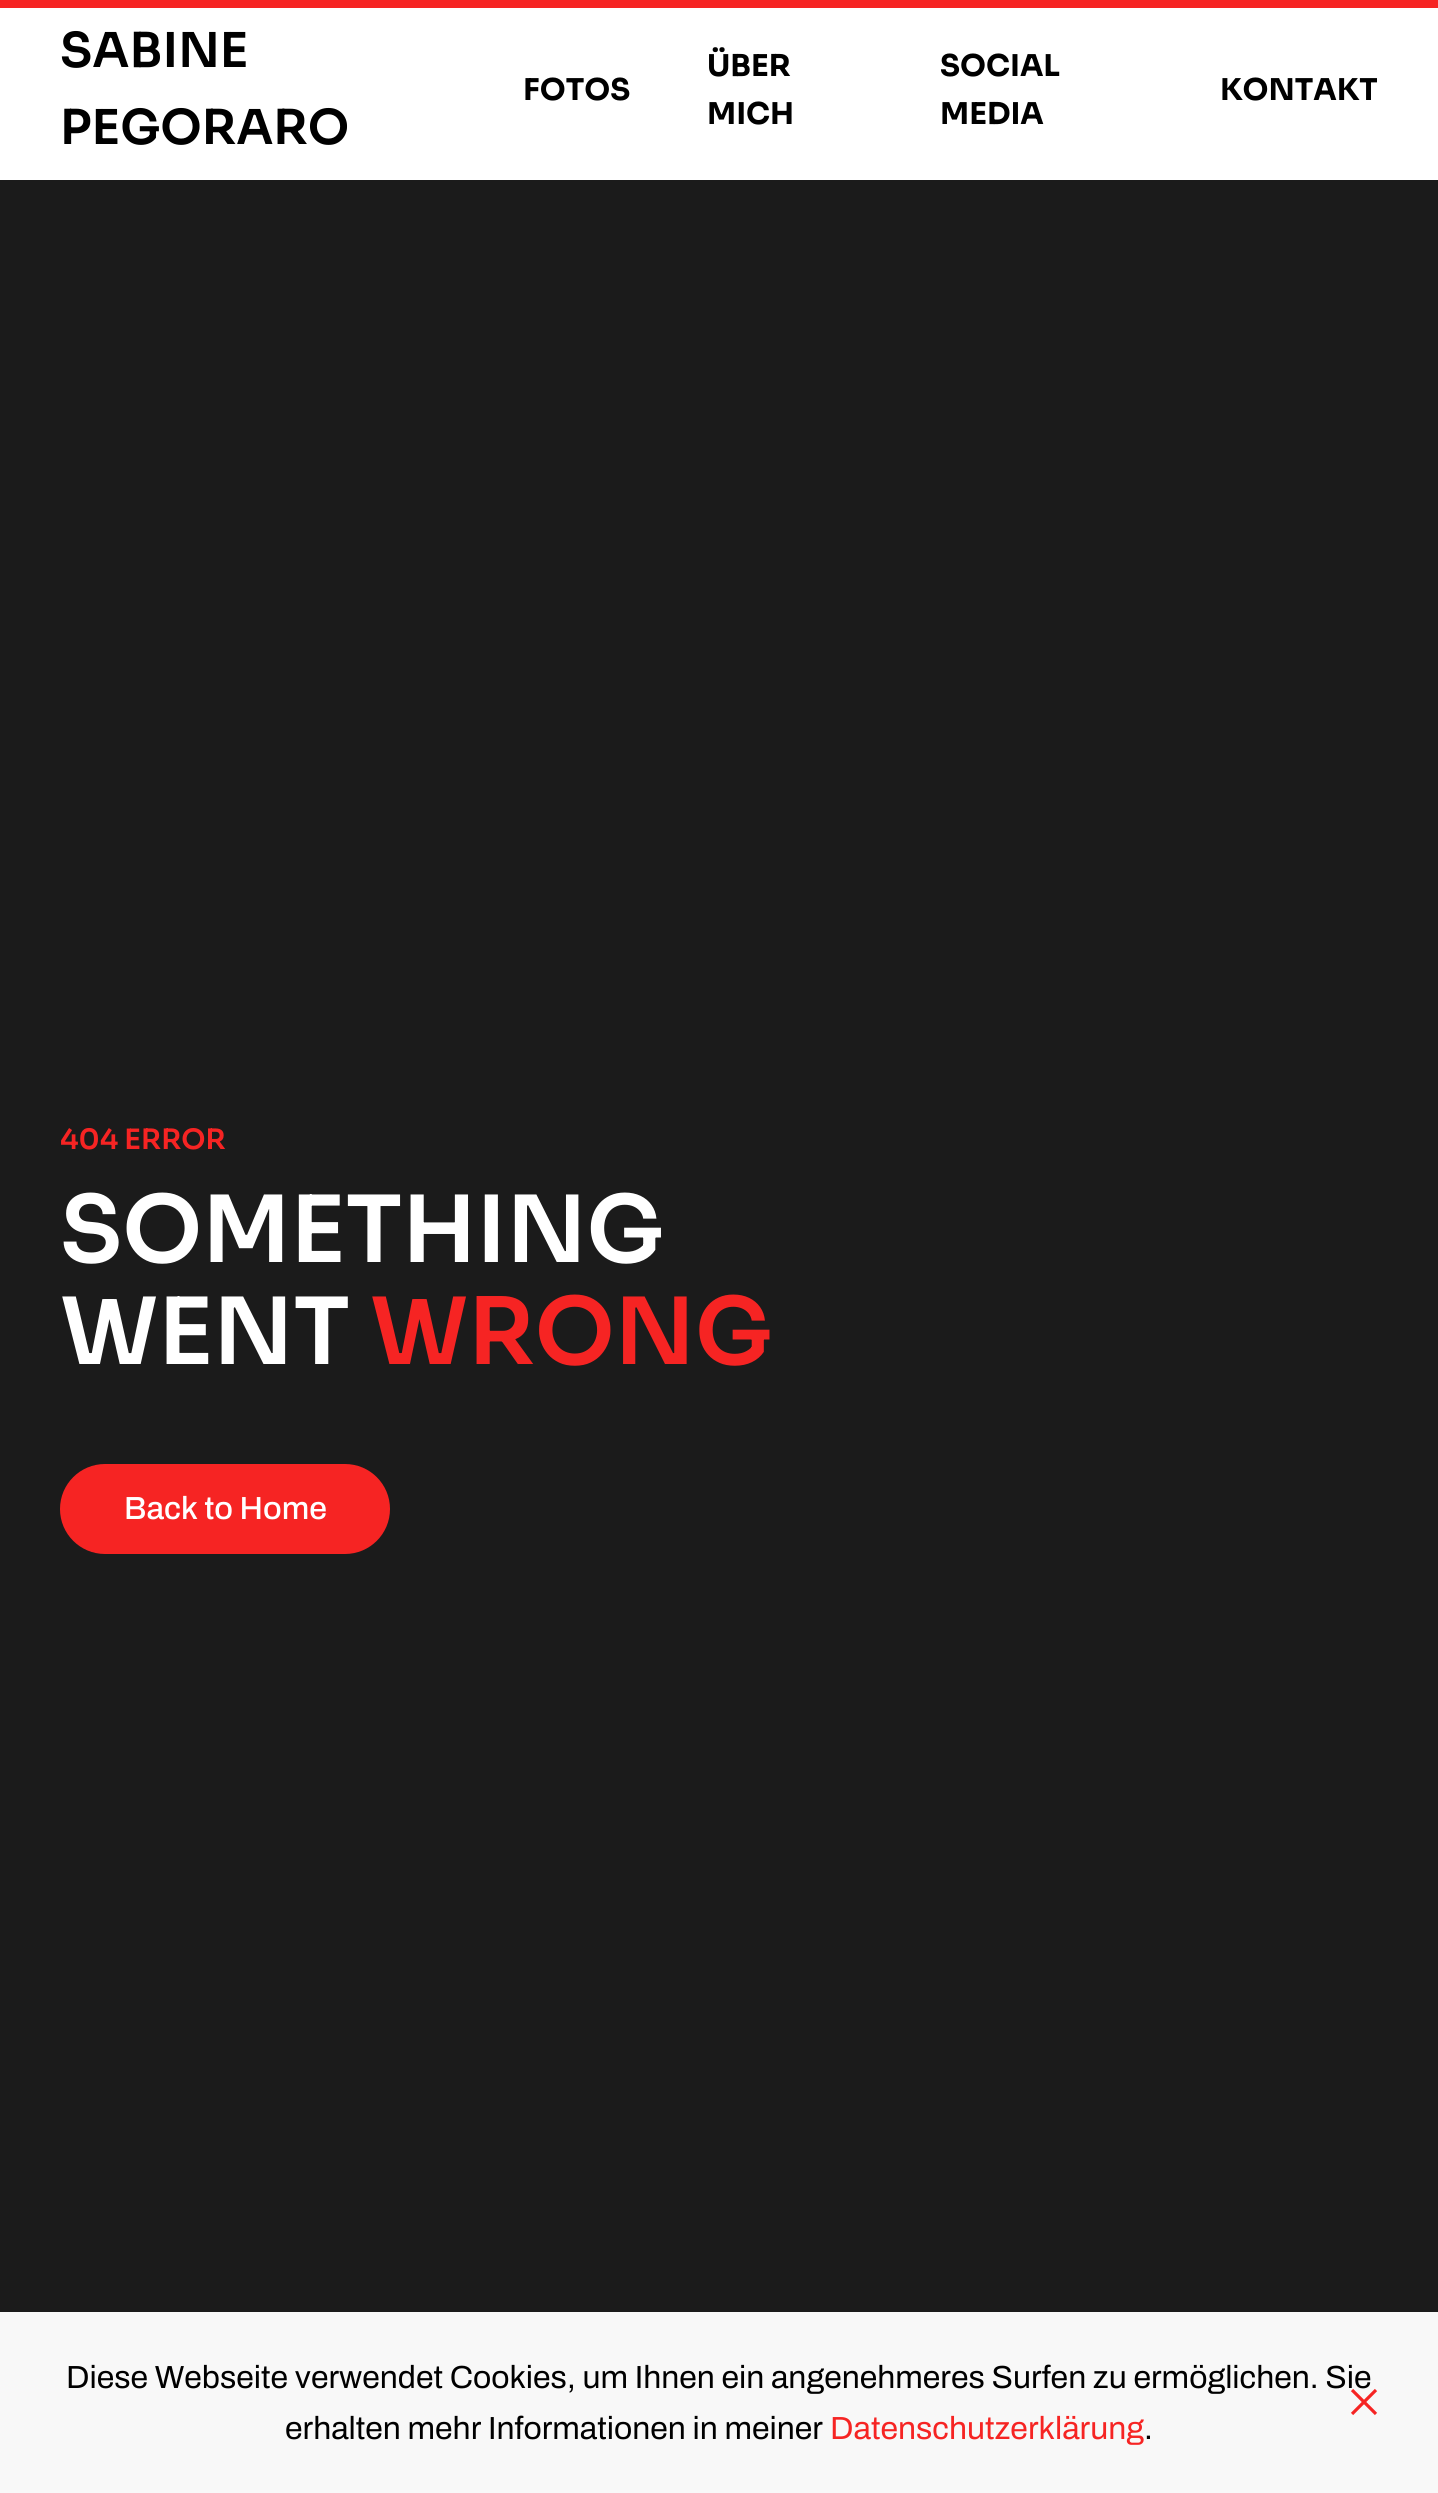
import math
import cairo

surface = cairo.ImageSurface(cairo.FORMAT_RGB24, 1438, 2493)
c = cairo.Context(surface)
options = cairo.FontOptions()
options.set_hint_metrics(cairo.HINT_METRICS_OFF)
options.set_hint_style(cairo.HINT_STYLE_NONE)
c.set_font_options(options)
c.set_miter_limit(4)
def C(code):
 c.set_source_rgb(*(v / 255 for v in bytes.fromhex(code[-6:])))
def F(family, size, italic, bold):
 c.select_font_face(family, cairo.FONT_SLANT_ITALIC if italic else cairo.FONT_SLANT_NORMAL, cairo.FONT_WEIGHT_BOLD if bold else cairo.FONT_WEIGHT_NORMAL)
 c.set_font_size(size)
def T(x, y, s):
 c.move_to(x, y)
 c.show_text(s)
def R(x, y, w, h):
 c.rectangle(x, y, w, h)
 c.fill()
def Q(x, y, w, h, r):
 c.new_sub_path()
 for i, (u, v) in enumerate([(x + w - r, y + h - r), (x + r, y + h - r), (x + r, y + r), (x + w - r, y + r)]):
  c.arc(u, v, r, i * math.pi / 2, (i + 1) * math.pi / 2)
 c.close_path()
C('ffffff')
c.paint()
C('f62423')
R(0,0,1438,8)
F('Sora SemiBold',48,0,0)
C('000000')
T(60,67,'SABINE')
T(60,144,'PEGORARO')
F('Sora',30,0,1)
T(523,100,'FOTOS')
T(707,76,'ÜBER')
T(707,124,'MICH')
T(940,76,'SOCIAL')
T(940,124,'MEDIA')
T(1220,100,'KONTAKT')
C('1b1b1b')
R(0,180,1438,2132)
F('Sora SemiBold',28,0,0)
C('f62423')
T(60,1149,'404 ERROR')
F('Sora SemiBold',92.5,0,0)
C('ffffff')
T(60,1262,'SOMETHING')
T(60,1364,'WENT')
C('f62423')
T(370,1364,'WRONG')
Q(60,1464,330,90,45)
c.fill()
F('Archivo SemiBold',32,0,0)
C('ffffff')
T(124,1519,'Back to Home')
C('f8f8f8')
R(0,2312,1438,181)
F('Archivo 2 SemiBold',32,0,0)
C('000000')
T(66,2388,'Diese Webseite verwendet Cookies, um Ihnen ein angenehmeres Surfen zu ermöglichen. Sie')
c.new_path()
c.move_to(1352,2390)
c.line_to(1376,2414)
c.move_to(1376,2390)
c.line_to(1352,2414)
C('f62423')
c.set_line_width(3.2)
c.stroke()
C('000000')
T(285,2439,'erhalten mehr Informationen in meiner')
C('f62423')
T(830,2439,'Datenschutzerklärung')
C('000000')
T(1144,2439,'.')
surface.write_to_png('o.png')
